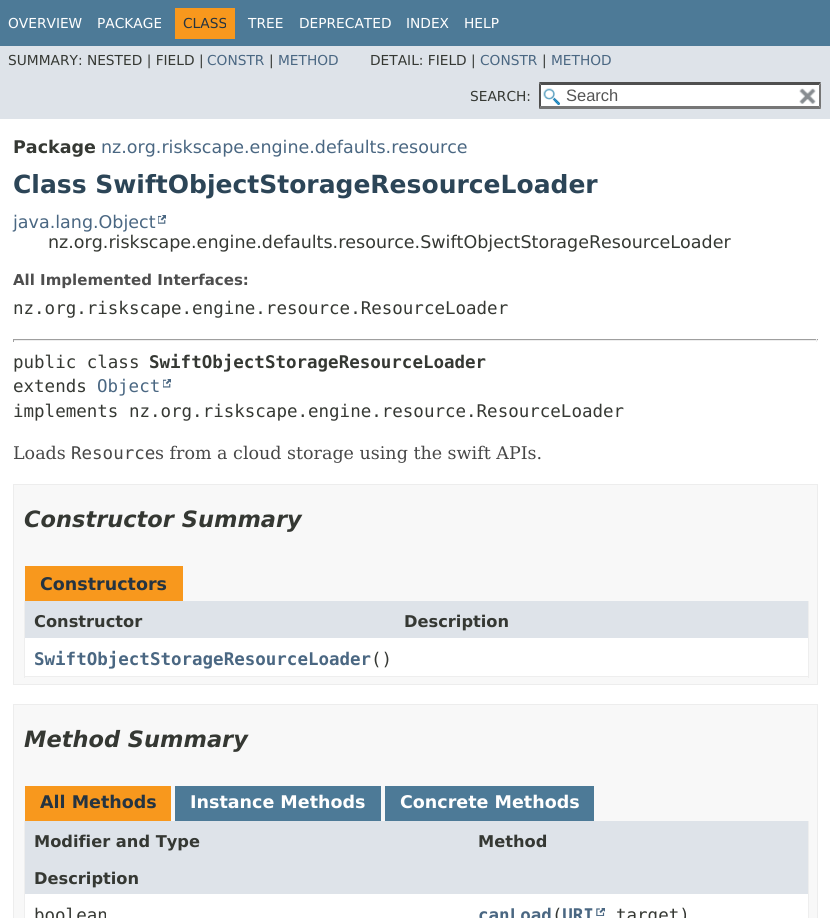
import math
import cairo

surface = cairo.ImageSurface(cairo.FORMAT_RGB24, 830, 918)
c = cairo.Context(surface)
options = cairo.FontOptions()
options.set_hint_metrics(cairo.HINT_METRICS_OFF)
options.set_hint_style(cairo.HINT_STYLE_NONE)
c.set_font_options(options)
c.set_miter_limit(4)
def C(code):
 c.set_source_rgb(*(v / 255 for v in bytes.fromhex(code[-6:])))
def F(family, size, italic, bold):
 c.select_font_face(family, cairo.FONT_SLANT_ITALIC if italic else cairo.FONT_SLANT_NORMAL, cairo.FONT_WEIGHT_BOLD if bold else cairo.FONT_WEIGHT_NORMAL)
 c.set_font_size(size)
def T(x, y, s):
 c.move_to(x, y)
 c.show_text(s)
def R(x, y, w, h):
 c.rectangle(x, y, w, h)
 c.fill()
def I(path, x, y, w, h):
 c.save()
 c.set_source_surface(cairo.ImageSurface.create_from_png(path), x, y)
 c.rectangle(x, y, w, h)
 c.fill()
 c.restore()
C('ffffff')
c.paint()
C('4d7a97')
R(0,0,830,46)
F('DejaVu Sans',13.75,0,0)
C('ffffff')
T(8,28,'OVERVIEW')
T(97,28,'PACKAGE')
C('f8981d')
R(175,8,60,31)
C('253441')
T(183,28,'CLASS')
C('ffffff')
T(248,28,'TREE')
T(299,28,'DEPRECATED')
T(406,28,'INDEX')
T(464,28,'HELP')
C('dee3e9')
R(0,46,830,73)
C('353833')
T(8,65,'SUMMARY: NESTED | FIELD |')
C('4a6782')
T(207,65,'CONSTR')
C('353833')
T(269,65,'|')
C('4a6782')
T(278,65,'METHOD')
C('353833')
T(370,65,'DETAIL: FIELD |')
C('4a6782')
T(480,65,'CONSTR')
C('353833')
T(542,65,'|')
C('4a6782')
T(551,65,'METHOD')
C('353833')
T(470,101,'SEARCH:')
C('ffffff')
R(539,83,282,26)
I('1.png',543,88,17,17)
C('4f4f4f')
c.new_path()
c.move_to(539,82)
c.line_to(821,82)
c.line_to(819,85)
c.line_to(541,85)
c.close_path()
c.fill()
C('767676')
c.new_path()
c.move_to(821,82.5)
c.line_to(821,109)
c.line_to(819,106)
c.line_to(819,85)
c.close_path()
c.fill()
c.new_path()
c.move_to(821,109)
c.line_to(539,109)
c.line_to(541,106)
c.line_to(819,106)
c.close_path()
c.fill()
C('4f4f4f')
c.new_path()
c.move_to(539,109)
c.line_to(539,82.5)
c.line_to(541,85)
c.line_to(541,106)
c.close_path()
c.fill()
F('Liberation Sans',16.5,0,0)
C('545454')
T(566,101,'Search')
I('2.png',799,88,17,16)
F('DejaVu Sans',17.5,0,1)
C('353833')
T(13,153,'Package')
F('DejaVu Sans',17.5,0,0)
C('4a6782')
T(101,153,'nz.org.riskscape.engine.defaults.resource')
F('DejaVu Sans',25,0,1)
C('2c4557')
T(13,193,'Class SwiftObjectStorageResourceLoader')
F('DejaVu Sans',17.5,0,0)
C('4a6782')
T(13,228,'java.lang.Object')
I('3.png',158,215,8,9)
C('353833')
T(48,248,'nz.org.riskscape.engine.defaults.resource.SwiftObjectStorageResourceLoader')
F('DejaVu Sans',15,0,1)
C('4e4e4e')
T(13,285,'All Implemented Interfaces:')
F('DejaVu Sans Mono',17.5,0,0)
C('353833')
T(13,314,'nz.org.riskscape.engine.resource.ResourceLoader')
C('9f9f9f')
R(13,339,805,1)
C('eeeeee')
R(816,339,1,3)
R(13,340,805,1)
C('9f9f9f')
R(13,339,1,3)
C('353833')
T(13,368,'public class')
F('DejaVu Sans Mono',17.5,0,1)
T(149,368,'SwiftObjectStorageResourceLoader')
F('DejaVu Sans Mono',17.5,0,0)
T(13,392,'extends')
C('4a6782')
T(97,392,'Object')
I('4.png',163,379,8,9)
C('353833')
T(13,417,'implements nz.org.riskscape.engine.resource.ResourceLoader')
F('DejaVu Serif',17.5,0,0)
C('474747')
T(13,459,'Loads')
F('DejaVu Sans Mono',17.5,0,0)
T(71,459,'Resource')
F('DejaVu Serif',17.5,0,0)
T(155,459,'s from a cloud storage using the swift APIs.')
C('f8f8f8')
c.rectangle(13.5,484.5,804,200)
c.fill_preserve()
C('ededed')
c.set_line_width(1)
c.stroke()
F('DejaVu Sans',22.5,1,1)
C('353833')
T(24,527,'Constructor Summary')
C('f8981d')
R(25,566,158,35)
F('DejaVu Sans',17.5,0,1)
C('253441')
T(40,590,'Constructors')
C('eeeeee')
R(808,601,1,77)
R(24,676,785,1)
R(24,601,1,77)
C('dee3e9')
R(25,601,783,37)
F('DejaVu Sans',16.25,0,1)
C('353833')
T(34,627,'Constructor')
T(404,627,'Description')
C('ffffff')
R(25,638,783,38)
F('DejaVu Sans Mono',17.5,0,1)
C('4a6782')
T(34,665,'SwiftObjectStorageResourceLoader')
F('DejaVu Sans Mono',17.5,0,0)
C('353833')
T(371,665,'()')
C('f8f8f8')
c.rectangle(13.5,704.5,804,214)
c.fill_preserve()
C('ededed')
c.stroke()
F('DejaVu Sans',22.5,1,1)
C('353833')
T(24,747,'Method Summary')
C('f8981d')
R(25,786,146,35)
F('DejaVu Sans',17.5,0,1)
C('253441')
T(40,808,'All Methods')
C('4d7a97')
R(175,786,206,35)
C('ffffff')
T(190,808,'Instance Methods')
C('4d7a97')
R(385,786,209,35)
C('ffffff')
T(400,808,'Concrete Methods')
C('eeeeee')
R(808,821,1,97)
R(24,821,1,97)
C('dee3e9')
R(25,821,783,37)
F('DejaVu Sans',16.25,0,1)
C('353833')
T(34,847,'Modifier and Type')
T(478,847,'Method')
C('dee3e9')
R(25,858,783,36)
C('353833')
T(34,884,'Description')
C('ffffff')
R(25,894,783,24)
F('DejaVu Sans Mono',17.5,0,0)
C('353833')
T(34,921,'boolean')
F('DejaVu Sans Mono',17.5,0,1)
C('4a6782')
T(478,921,'canLoad URI')
F('DejaVu Sans Mono',17.5,0,0)
C('353833')
T(552,921,'(')
I('5.png',596,908,9,8)
T(616,921,'target)')
surface.write_to_png('o.png')
